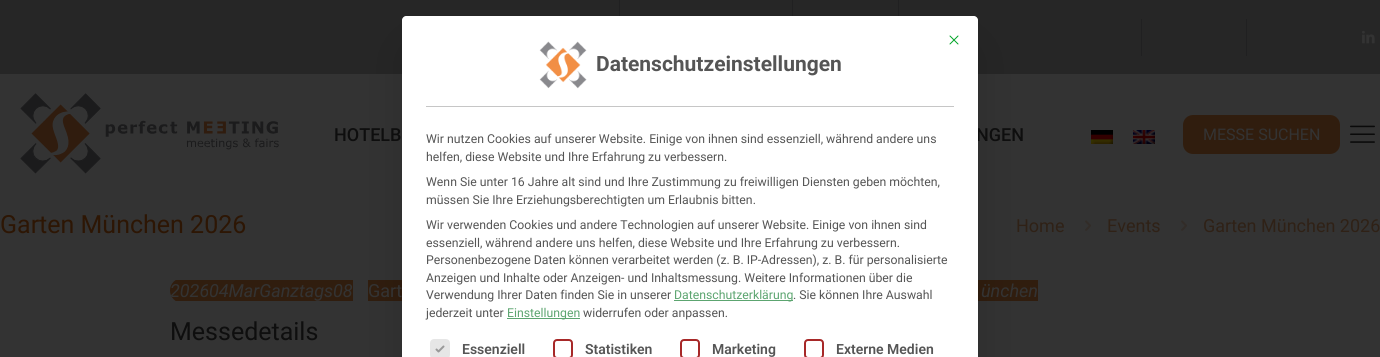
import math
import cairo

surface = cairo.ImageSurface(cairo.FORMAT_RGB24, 1380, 357)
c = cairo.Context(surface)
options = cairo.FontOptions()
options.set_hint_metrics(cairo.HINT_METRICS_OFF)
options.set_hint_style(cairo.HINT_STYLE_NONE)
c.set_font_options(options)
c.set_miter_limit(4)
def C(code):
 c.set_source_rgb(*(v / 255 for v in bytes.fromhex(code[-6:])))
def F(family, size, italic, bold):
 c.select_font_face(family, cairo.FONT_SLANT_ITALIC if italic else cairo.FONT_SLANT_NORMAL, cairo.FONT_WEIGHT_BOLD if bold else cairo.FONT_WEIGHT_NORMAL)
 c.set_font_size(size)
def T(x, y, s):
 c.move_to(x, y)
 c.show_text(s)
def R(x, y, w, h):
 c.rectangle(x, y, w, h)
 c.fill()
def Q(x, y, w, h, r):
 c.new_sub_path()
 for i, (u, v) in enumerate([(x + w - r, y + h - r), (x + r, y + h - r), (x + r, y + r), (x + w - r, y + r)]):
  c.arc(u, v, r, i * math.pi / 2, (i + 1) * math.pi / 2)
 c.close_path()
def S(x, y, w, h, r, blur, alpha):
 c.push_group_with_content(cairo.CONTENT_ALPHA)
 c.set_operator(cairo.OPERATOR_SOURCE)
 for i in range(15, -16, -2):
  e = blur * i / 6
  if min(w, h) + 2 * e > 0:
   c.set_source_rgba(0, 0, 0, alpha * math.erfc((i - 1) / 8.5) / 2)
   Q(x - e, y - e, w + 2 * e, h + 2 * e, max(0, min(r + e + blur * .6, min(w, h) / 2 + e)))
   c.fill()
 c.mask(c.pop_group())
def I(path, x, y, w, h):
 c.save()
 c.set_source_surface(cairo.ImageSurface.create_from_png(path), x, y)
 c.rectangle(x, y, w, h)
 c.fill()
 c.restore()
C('333333')
c.paint()
C('262626')
R(0,0,1380,74)
C('202021')
R(619,0,1,16)
R(792,0,1,16)
R(898,0,1,16)
C('301d0e')
R(209,280,144,21)
R(368,280,34,21)
R(978,280,60,21)
C('000000')
S(414,53,552,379,0,25,.25)
F('Roboto Medium',18,0,0)
C('0e0e0e')
T(976,141,'NGEN')
C('ffffff')
c.new_path()
c.move_to(406,16)
c.line_to(974,16)
c.curve_to(976,16,978,18,978,20)
c.line_to(978,357)
c.line_to(402,357)
c.line_to(402,20)
c.curve_to(402,18,404,16,406,16)
c.close_path()
c.fill()
c.new_path()
c.move_to(950,44)
c.line_to(958,36)
c.move_to(950,36)
c.line_to(958,44)
C('00a526')
c.set_line_width(1)
c.set_line_cap(cairo.LINE_CAP_ROUND)
c.set_line_join(cairo.LINE_JOIN_ROUND)
c.stroke()
C('c6c6c6')
R(426,106,528,1)
I('1.png',539,41,48,48)
F('Roboto',21,0,1)
C('555555')
T(596,71,'Datenschutzeinstellungen')
F('Roboto',12.25,0,0)
T(426,143,'Wir nutzen Cookies auf unserer Website. Einige von ihnen sind essenziell, während andere uns')
T(426,161,'helfen, diese Website und Ihre Erfahrung zu verbessern.')
T(426,186,'Wenn Sie unter 16 Jahre alt sind und Ihre Zustimmung zu freiwilligen Diensten geben möchten,')
T(426,204,'müssen Sie Ihre Erziehungsberechtigten um Erlaubnis bitten.')
T(426,229,'Wir verwenden Cookies und andere Technologien auf unserer Website. Einige von ihnen sind')
T(426,247,'essenziell, während andere uns helfen, diese Website und Ihre Erfahrung zu verbessern.')
T(426,264,'Personenbezogene Daten können verarbeitet werden (z. B. IP-Adressen), z. B. für personalisierte')
T(426,282,'Anzeigen und Inhalte oder Anzeigen- und Inhaltsmessung. Weitere Informationen über die')
T(426,299,'Verwendung Ihrer Daten finden Sie in unserer')
C('5ca570')
R(674,300,119,1)
T(674,299,'Datenschutzerklärung')
C('555555')
T(793,299,'. Sie können Ihre Auswahl')
T(426,317,'jederzeit unter')
C('5ca570')
R(507,318,73,1)
T(507,317,'Einstellungen')
C('555555')
T(583,317,'widerrufen oder anpassen.')
C('e6e6e6')
Q(431,340,18,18,3)
c.fill_preserve()
c.set_line_width(2)
c.set_line_cap(cairo.LINE_CAP_BUTT)
c.set_line_join(cairo.LINE_JOIN_MITER)
c.stroke()
I('2.png',435,345,10,8)
F('Roboto SemiBold',14,0,0)
C('555555')
T(462,354,'Essenziell')
Q(554,340,18,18,3)
C('a72828')
c.stroke()
C('555555')
T(585,354,'Statistiken')
Q(681,340,18,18,3)
C('a72828')
c.stroke()
C('555555')
T(712,354,'Marketing')
Q(805,340,18,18,3)
C('a72828')
c.stroke()
C('555555')
T(836,354,'Externe Medien')
C('202021')
R(1141,19,1,37)
R(1246,19,1,37)
I('3.png',1362,30,13,14)
I('4.png',20,93,259,81)
F('Roboto Medium',18,0,0)
C('0e0e0e')
T(334,141,'HOTELB')
I('5.png',1091,130,22,14)
I('6.png',1133,130,22,14)
C('301d0e')
Q(1183,115,157,39,10)
c.fill()
F('Roboto',16,0,0)
C('333333')
T(1203,140,'MESSE SUCHEN')
I('7.png',1350,125,25,18)
F('Roboto',25,0,0)
C('2d1604')
T(0,233,'Garten München 2026')
F('Roboto',18,0,0)
C('2f2116')
T(1016,232,'Home')
I('8.png',1085,220,6,11)
T(1107,232,'Events')
I('8.png',1181,220,6,11)
T(1203,232,'Garten München 2026')
c.save()
Q(170,278,1040,25,12.5)
c.clip()
C('301d0e')
R(170,280,39,21)
F('Roboto',18,1,0)
C('333333')
T(170,297,'2026')
c.restore()
F('Roboto',18,1,0)
C('333333')
T(209,297,'04MarGanztags08')
F('Roboto',18,0,0)
T(368,297,'Gart')
F('Roboto',18,1,0)
T(981,297,'ünchen')
F('Roboto',25,0,0)
C('0e0e0e')
T(170,340,'Messedetails')
surface.write_to_png('o.png')
